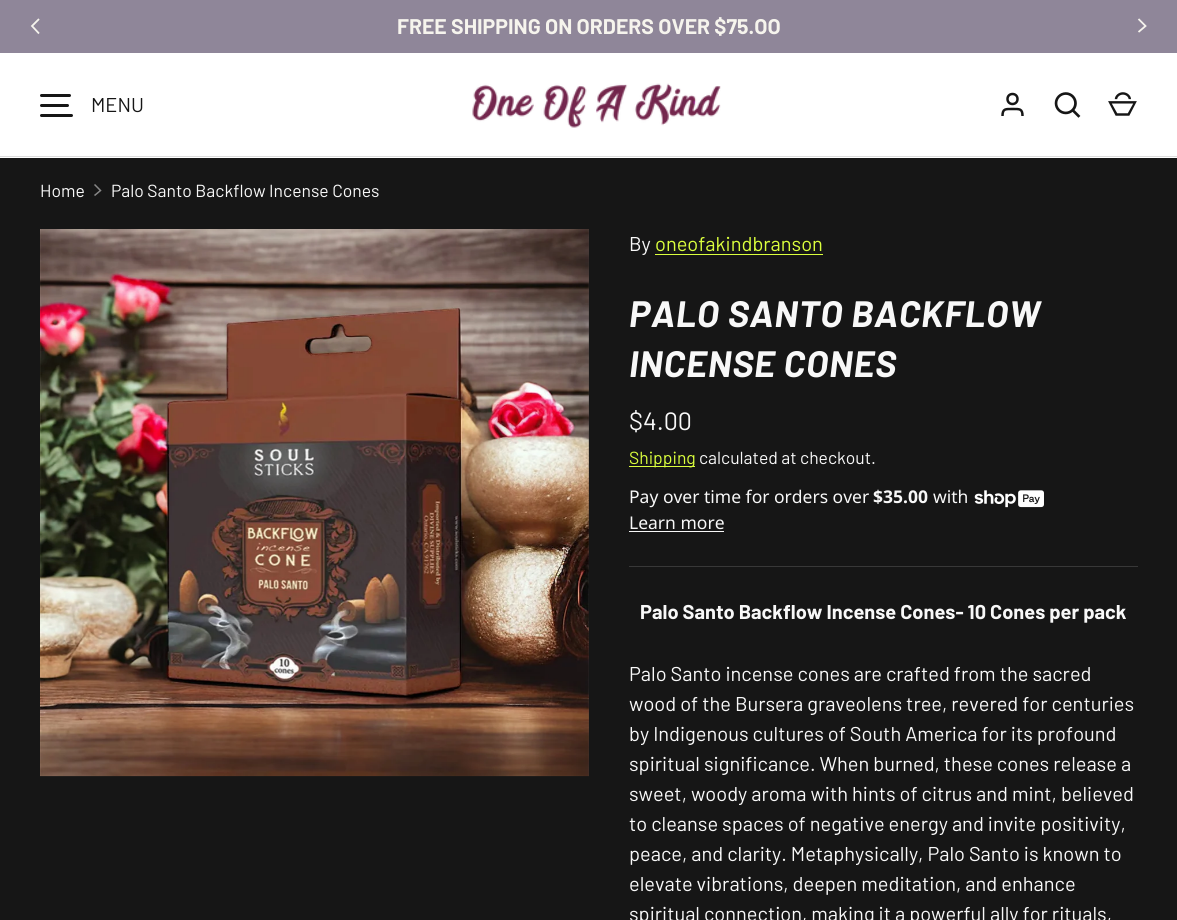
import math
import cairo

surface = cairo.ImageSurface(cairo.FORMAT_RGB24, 1177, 920)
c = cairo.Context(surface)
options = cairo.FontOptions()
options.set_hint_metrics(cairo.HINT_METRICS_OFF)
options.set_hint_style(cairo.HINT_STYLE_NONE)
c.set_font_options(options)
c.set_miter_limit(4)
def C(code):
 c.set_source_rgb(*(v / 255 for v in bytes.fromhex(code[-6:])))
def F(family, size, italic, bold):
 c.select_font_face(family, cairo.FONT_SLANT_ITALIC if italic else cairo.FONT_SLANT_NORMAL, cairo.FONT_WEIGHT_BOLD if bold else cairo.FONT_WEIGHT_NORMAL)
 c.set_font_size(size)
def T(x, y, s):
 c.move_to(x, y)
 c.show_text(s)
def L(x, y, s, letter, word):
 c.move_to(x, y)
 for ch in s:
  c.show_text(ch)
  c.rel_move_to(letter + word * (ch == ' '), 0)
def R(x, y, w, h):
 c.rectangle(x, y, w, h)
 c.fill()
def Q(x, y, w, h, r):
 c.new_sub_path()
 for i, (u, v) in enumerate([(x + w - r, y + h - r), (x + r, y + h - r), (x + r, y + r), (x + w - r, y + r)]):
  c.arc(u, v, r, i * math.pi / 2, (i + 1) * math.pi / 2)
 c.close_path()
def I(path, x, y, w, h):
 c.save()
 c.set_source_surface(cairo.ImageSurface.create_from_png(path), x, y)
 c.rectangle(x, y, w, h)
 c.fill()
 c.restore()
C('161616')
c.paint()
C('8f8699')
R(0,0,1177,53)
F('Barlow',21.25,0,1)
C('f6f4ed')
T(397,34,'FREE SHIPPING ON ORDERS OVER $75.OO')
c.new_path()
c.move_to(39,19)
c.line_to(32,26)
c.line_to(39,33.5)
c.set_line_width(1.8)
c.stroke()
c.new_path()
c.move_to(1138.5,19)
c.line_to(1145.5,26)
c.line_to(1138.5,32)
c.stroke()
C('ffffff')
R(0,53,1177,105)
C('dcdcdc')
R(0,156,1177,1)
C('161616')
Q(40,94,31,3,1.5)
c.fill()
Q(40,104,29,3,1.5)
c.fill()
Q(40,114,33,3,1.5)
c.fill()
F('Barlow',20,0,0)
T(91,112,'MENU')
I('1.png',472,83,249,45)
c.arc(1012.5,99,5,0,2 * math.pi)
c.set_line_width(2.5)
c.stroke()
c.new_path()
c.move_to(1022.5,116)
c.curve_to(1022.5,108.5,1019.5,109,1012.5,109)
c.curve_to(1005.5,109,1002.5,108.5,1002.5,116)
c.stroke()
I('2.png',1054,92,27,26)
I('3.png',1108,92,29,24)
F('Barlow',17.5,0,0)
C('f8f8f8')
T(40,197,'Home')
c.new_path()
c.move_to(94.5,184.5)
c.line_to(100.5,190.5)
c.line_to(94.5,195.5)
C('878787')
c.set_line_width(1.5)
c.stroke()
C('f8f8f8')
T(111,197,'Palo Santo Backflow Incense Cones')
I('4.png',40,229,549,548)
F('Barlow',20,0,0)
T(629,251,'By')
C('dbff3d')
T(655,251,'oneofakindbranson')
R(655,254,168,1)
F('Barlow',36.75,1,1)
C('f8f8f8')
L(629,327,'PALO SANTO BACKFLOW',.75,0)
L(629,377,'INCENSE CONES',.75,0)
F('Barlow',25,0,0)
T(629,430,'$4.00')
C('dbff3d')
R(629,466,66,1)
F('Barlow',17.5,0,0)
T(629,464,'Shipping')
C('f8f8f8')
T(699,464,'calculated at checkout.')
F('Noto Sans',17.5,0,0)
T(629,503,'Pay over time for orders over')
F('Noto Sans',17.5,0,1)
T(873,503,'$35.00')
F('Noto Sans',17.5,0,0)
T(933,503,'with')
I('5.png',974,490,70,18)
T(629,529,'Learn more')
R(629,531,95,1)
C('383838')
R(629,566,509,1)
F('Barlow',20,0,1)
C('f8f8f8')
T(640,619,'Palo Santo Backflow Incense Cones- 10 Cones per pack')
F('Barlow',20,0,0)
T(629,681,'Palo Santo incense cones are crafted from the sacred')
T(629,711,'wood of the Bursera graveolens tree, revered for centuries')
T(629,741,'by Indigenous cultures of South America for its profound')
T(629,771,'spiritual significance. When burned, these cones release a')
T(629,801,'sweet, woody aroma with hints of citrus and mint, believed')
T(629,831,'to cleanse spaces of negative energy and invite positivity,')
T(629,861,'peace, and clarity. Metaphysically, Palo Santo is known to')
T(629,891,'elevate vibrations, deepen meditation, and enhance')
T(629,921,'spiritual connection, making it a powerful ally for rituals,')
surface.write_to_png('o.png')
